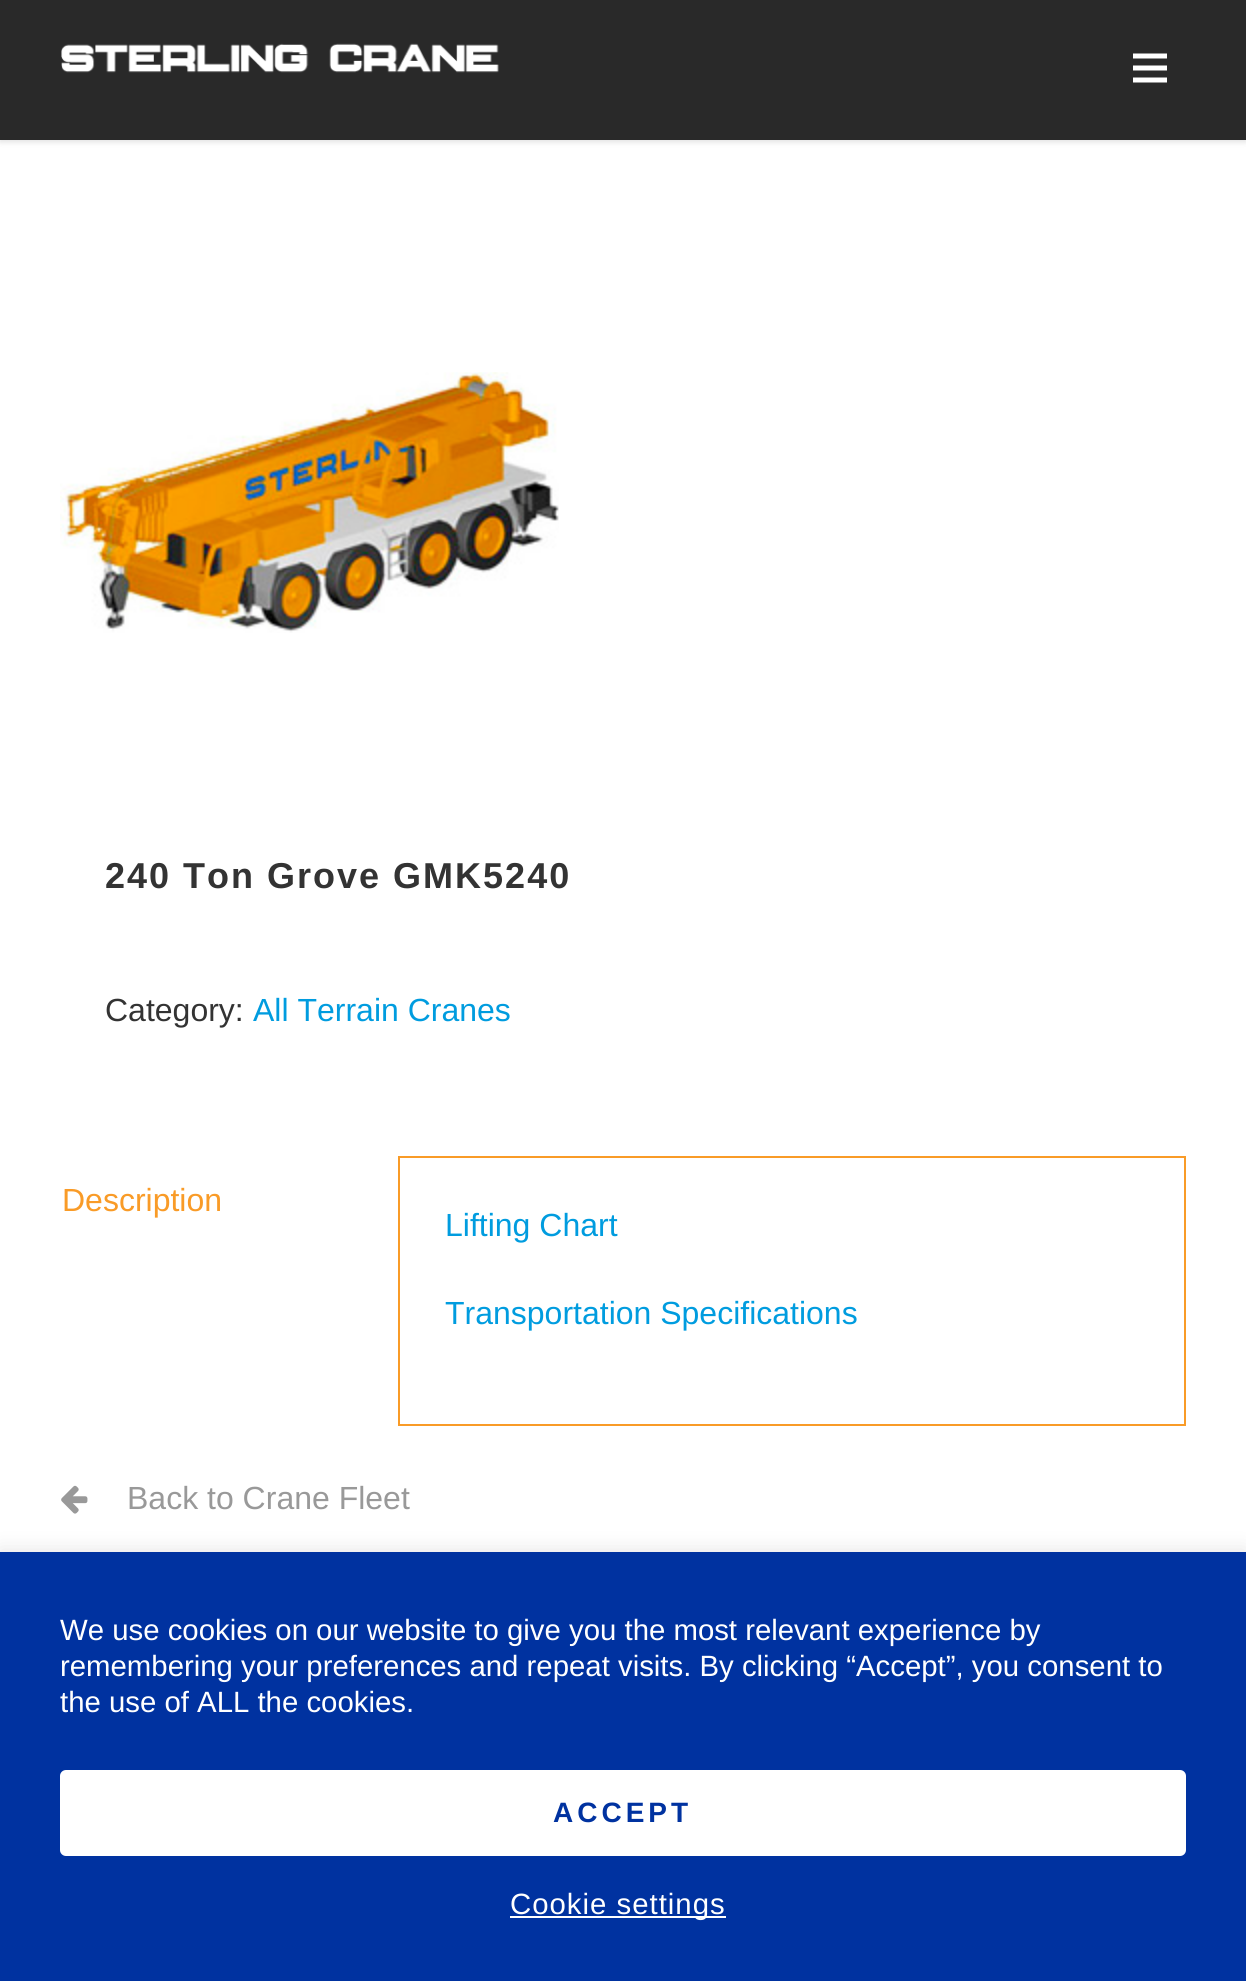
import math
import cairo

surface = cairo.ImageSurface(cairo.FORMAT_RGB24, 1246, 1981)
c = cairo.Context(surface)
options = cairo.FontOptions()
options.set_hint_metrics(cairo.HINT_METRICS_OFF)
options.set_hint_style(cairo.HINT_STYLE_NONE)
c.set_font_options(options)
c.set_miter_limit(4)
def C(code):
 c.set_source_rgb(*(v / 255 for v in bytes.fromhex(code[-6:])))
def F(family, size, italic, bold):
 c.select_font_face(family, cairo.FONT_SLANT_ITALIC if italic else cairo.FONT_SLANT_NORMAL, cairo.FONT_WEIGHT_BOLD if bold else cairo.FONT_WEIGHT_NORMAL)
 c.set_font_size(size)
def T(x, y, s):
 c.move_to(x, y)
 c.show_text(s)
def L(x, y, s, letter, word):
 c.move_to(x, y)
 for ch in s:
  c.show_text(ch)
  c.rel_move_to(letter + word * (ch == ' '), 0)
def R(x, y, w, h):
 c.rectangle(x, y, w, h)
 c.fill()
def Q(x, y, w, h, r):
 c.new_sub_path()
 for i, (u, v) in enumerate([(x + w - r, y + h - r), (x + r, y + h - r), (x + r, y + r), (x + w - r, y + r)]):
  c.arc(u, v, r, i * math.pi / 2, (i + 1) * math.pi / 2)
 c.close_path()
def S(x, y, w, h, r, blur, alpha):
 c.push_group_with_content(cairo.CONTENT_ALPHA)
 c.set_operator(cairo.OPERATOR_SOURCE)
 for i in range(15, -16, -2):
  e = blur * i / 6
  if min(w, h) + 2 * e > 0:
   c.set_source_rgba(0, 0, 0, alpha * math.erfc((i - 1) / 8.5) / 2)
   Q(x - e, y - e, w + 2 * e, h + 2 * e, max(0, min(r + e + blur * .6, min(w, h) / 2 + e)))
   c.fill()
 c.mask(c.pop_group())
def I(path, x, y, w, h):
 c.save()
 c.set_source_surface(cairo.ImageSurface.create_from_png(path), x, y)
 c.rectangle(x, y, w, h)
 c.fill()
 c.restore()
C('ffffff')
c.paint()
C('000000')
S(0,2,1246,140,0,3,.12)
C('292929')
R(0,0,1246,140)
I('1.png',61,43,438,30)
C('ffffff')
c.new_path()
c.move_to(1133,70.5)
c.line_to(1167,70.5)
c.line_to(1167,65.5)
c.line_to(1133,65.5)
c.close_path()
c.move_to(1133,82.5)
c.line_to(1167,82.5)
c.line_to(1167,77.5)
c.line_to(1133,77.5)
c.close_path()
c.move_to(1133,53.5)
c.line_to(1133,58.5)
c.line_to(1167,58.5)
c.line_to(1167,53.5)
c.close_path()
c.fill()
I('2.png',60,372,499,261)
F('Liberation Sans',36,0,1)
C('333333')
L(105,888,'240 Ton Grove GMK5240',2,0)
F('Liberation Sans',32,0,0)
T(105,1021,'Category:')
C('009cdf')
T(253,1021,'All Terrain Cranes')
C('f99b27')
T(62,1211,'Description')
c.rectangle(399,1157,786,268)
c.stroke()
C('009cdf')
T(445,1236,'Lifting Chart')
T(445,1324,'Transportation Specifications')
I('3.png',61,1485,27,29)
C('999999')
T(127,1509,'Back to Crane Fleet')
C('acabab')
S(0,1550,1246,430,0,10,.3)
C('0032a0')
R(0,1552,1246,429)
F('Liberation Sans',29.35,0,0)
C('ffffff')
T(60,1640,'We use cookies on our website to give you the most relevant experience by')
T(60,1676,'remembering your preferences and repeat visits. By clicking “Accept”, you consent to')
T(60,1712,'the use of ALL the cookies.')
Q(60,1770,1126,86,6)
c.fill()
F('Liberation Sans',28,0,1)
C('0032a0')
L(553,1822,'ACCEPT',4,0)
C('ffffff')
R(510,1916,216,2)
F('Liberation Sans',29.35,0,0)
L(510,1914,'Cookie settings',1,0)
surface.write_to_png('o.png')
